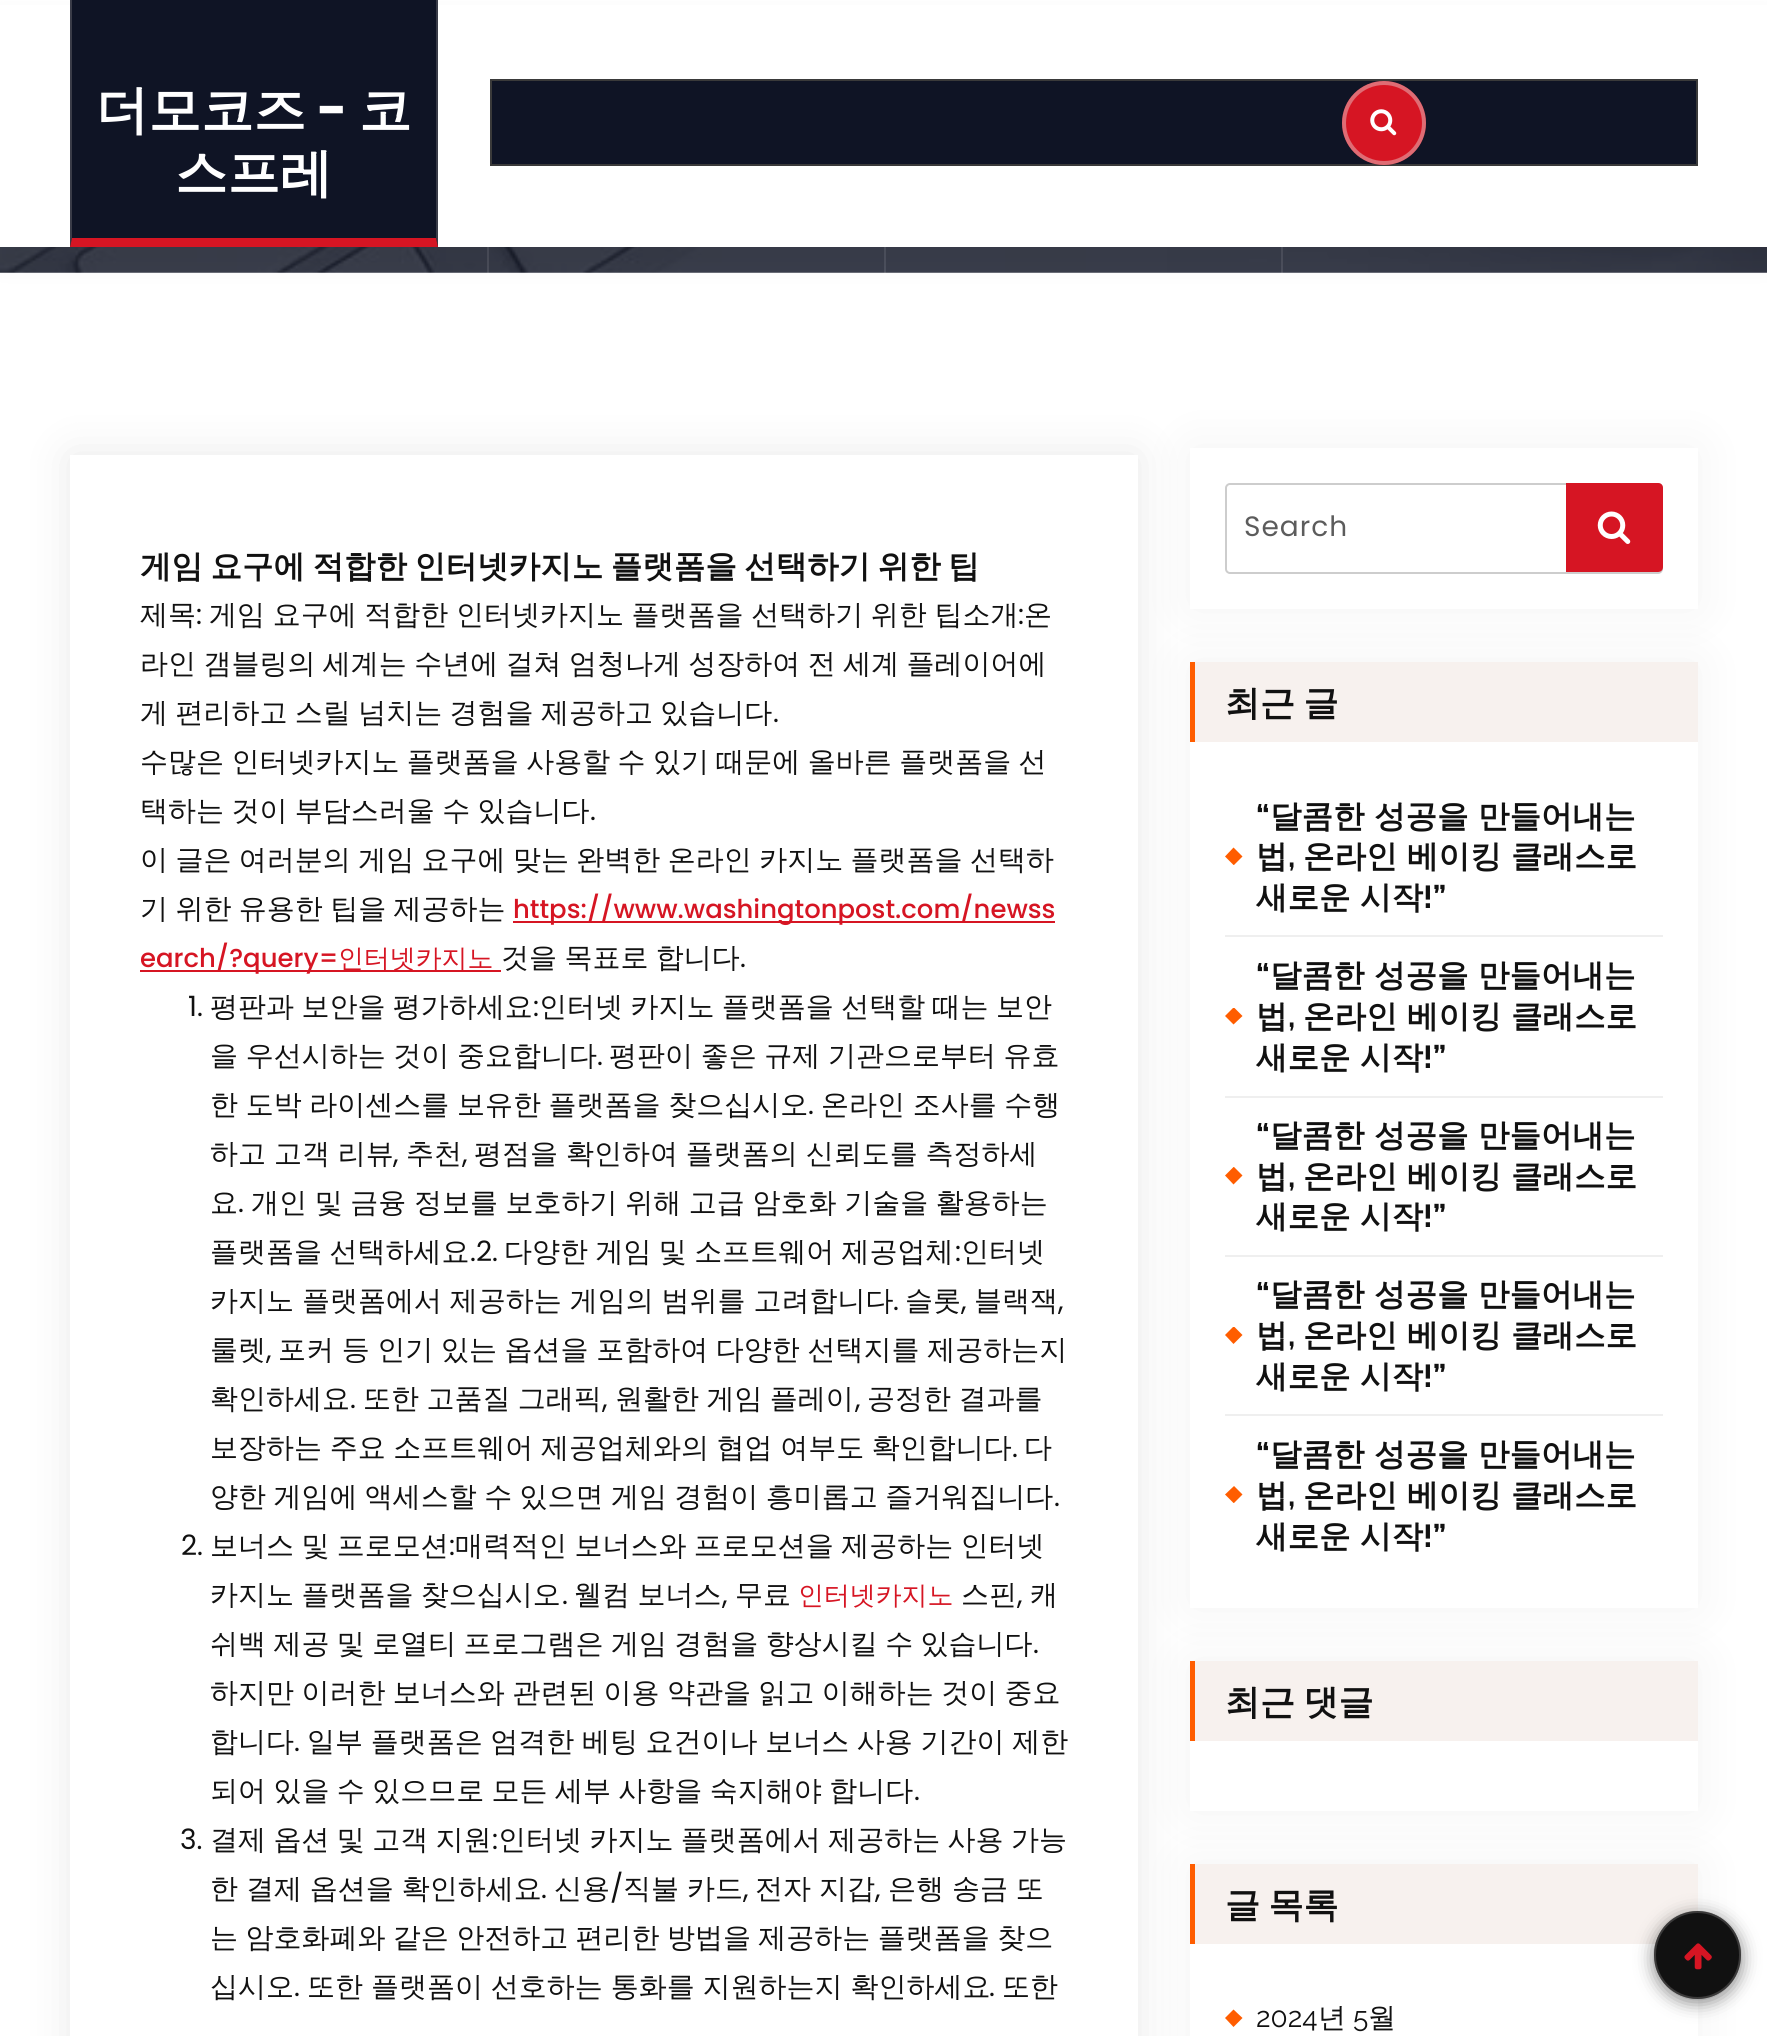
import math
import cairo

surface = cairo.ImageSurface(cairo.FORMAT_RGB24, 1767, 2036)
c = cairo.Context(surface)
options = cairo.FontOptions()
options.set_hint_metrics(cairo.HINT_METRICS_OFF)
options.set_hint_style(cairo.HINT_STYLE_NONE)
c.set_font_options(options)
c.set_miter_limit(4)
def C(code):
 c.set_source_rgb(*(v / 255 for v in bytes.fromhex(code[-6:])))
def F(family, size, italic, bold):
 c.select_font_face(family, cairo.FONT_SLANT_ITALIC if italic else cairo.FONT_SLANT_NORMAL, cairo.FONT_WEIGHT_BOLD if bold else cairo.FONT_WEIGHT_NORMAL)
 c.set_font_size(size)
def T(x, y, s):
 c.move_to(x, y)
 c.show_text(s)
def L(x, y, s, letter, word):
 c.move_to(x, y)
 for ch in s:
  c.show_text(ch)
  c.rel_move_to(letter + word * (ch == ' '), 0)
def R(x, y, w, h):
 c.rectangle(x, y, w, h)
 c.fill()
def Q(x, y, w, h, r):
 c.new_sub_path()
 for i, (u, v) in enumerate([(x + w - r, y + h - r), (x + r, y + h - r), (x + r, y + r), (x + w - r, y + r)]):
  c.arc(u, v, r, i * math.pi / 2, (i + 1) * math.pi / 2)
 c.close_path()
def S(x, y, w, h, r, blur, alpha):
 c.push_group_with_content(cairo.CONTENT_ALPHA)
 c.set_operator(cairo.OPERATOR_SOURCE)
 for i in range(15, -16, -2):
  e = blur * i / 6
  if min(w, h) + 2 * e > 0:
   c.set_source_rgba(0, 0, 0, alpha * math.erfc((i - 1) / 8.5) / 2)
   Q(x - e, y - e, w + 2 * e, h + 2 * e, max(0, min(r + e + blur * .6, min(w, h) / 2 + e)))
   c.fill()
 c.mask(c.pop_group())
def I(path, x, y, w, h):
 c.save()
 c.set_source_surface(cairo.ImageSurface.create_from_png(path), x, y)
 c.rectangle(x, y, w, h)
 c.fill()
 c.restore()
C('ffffff')
c.paint()
I('2.png',0,247,1767,26)
c.set_source_rgba(1,1,1,0.1)
R(487,247,2,26)
R(884,247,2,26)
R(1281,247,2,26)
C('000000')
S(0,16,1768,248,0,13,.05)
C('ffffff')
R(0,5,1767,242)
C('0f1425')
R(70,0,368,247)
C('393c48')
c.new_path()
c.move_to(438,-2)
c.line_to(438,247)
c.line_to(436,238)
c.line_to(436,0)
c.close_path()
c.fill()
C('d61523')
c.new_path()
c.move_to(438,247)
c.line_to(70,247)
c.line_to(72,238)
c.line_to(436,238)
c.close_path()
c.fill()
c.set_source_rgba(0.612,0.604,0.6,0.3)
c.new_path()
c.move_to(70,247)
c.line_to(70,-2)
c.line_to(72,0)
c.line_to(72,238)
c.close_path()
c.fill()
F('WenQuanYi Zen Hei',52.5,0,1)
C('ffffff')
T(96,128,'더모코즈')
F('Poppins',52.5,0,1)
T(317,128,'-')
F('WenQuanYi Zen Hei',52.5,0,1)
T(359,128,'코')
T(175,191,'스프레')
C('0f1425')
c.rectangle(491,80,1206,85)
c.fill_preserve()
C('3a3a3a')
c.stroke()
C('d61523')
c.arc(1384,123,42,0,2 * math.pi)
c.fill()
c.arc(1384,123,40,0,2 * math.pi)
c.set_source_rgba(0.933,0.933,0.933,0.4)
c.set_line_width(4)
c.stroke()
I('1.png',1370,109,27,27)
C('000000')
S(70,455,1068,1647,0,22,.09)
C('ffffff')
R(70,455,1068,1581)
F('WenQuanYi Zen Hei',31.5,0,1)
C('111111')
L(140,577,'게임 요구에 적합한 인터넷카지노 플랫폼을 선택하기 위한 팁',0,-2)
F('WenQuanYi Zen Hei Medium',28,0,0)
T(140,624,'제목')
F('Poppins',28,0,0)
T(196,624,':')
F('WenQuanYi Zen Hei Medium',28,0,0)
L(209,624,'게임 요구에 적합한 인터넷카지노 플랫폼을 선택하기 위한 팁소개',0,-.75)
F('Poppins',28,0,0)
T(1018,624,':')
F('WenQuanYi Zen Hei Medium',28,0,0)
T(1024,624,'온')
L(140,673,'라인 갬블링의 세계는 수년에 걸쳐 엄청나게 성장하여 전 세계 플레이어에',0,-1)
L(140,722,'게 편리하고 스릴 넘치는 경험을 제공하고 있습니다',0,-1)
F('Poppins',28,0,0)
T(773,722,'.')
F('WenQuanYi Zen Hei Medium',28,0,0)
L(140,771,'수많은 인터넷카지노 플랫폼을 사용할 수 있기 때문에 올바른 플랫폼을 선',0,-1)
L(140,820,'택하는 것이 부담스러울 수 있습니다',0,-1)
F('Poppins',28,0,0)
T(590,820,'.')
F('WenQuanYi Zen Hei Medium',28,0,0)
L(140,869,'이 글은 여러분의 게임 요구에 맞는 완벽한 온라인 카지노 플랫폼을 선택하',0,-1)
L(140,918,'기 위한 유용한 팁을 제공하는',0,-1)
C('d61523')
R(513,921,542,2)
F('Poppins Medium',25.9,0,0)
T(513,918,'https://www.washingtonpost.com/newss')
R(140,970,361,2)
T(140,967,'earch/?query=')
F('WenQuanYi Zen Hei Medium',25.9,0,0)
T(338,967,'인터넷카지노')
F('WenQuanYi Zen Hei Medium',28,0,0)
C('111111')
L(501,967,'것을 목표로 합니다',0,-1)
F('Poppins',28,0,0)
T(740,967,'.')
T(188,1016,'1.')
F('WenQuanYi Zen Hei Medium',28,0,0)
L(210,1016,'평판과 보안을 평가하세요',0,-1)
F('Poppins',28,0,0)
T(533,1016,':')
F('WenQuanYi Zen Hei Medium',28,0,0)
L(539,1016,'인터넷 카지노 플랫폼을 선택할 때는 보안',0,-1)
L(210,1065,'을 우선시하는 것이 중요합니다',0,-.75)
F('Poppins',28,0,0)
T(597,1065,'.')
F('WenQuanYi Zen Hei Medium',28,0,0)
L(609,1065,'평판이 좋은 규제 기관으로부터 유효',0,-.75)
L(210,1114,'한 도박 라이센스를 보유한 플랫폼을 찾으십시오',0,-.75)
F('Poppins',28,0,0)
T(808,1114,'.')
F('WenQuanYi Zen Hei Medium',28,0,0)
L(821,1114,'온라인 조사를 수행',0,-.75)
L(210,1163,'하고 고객 리뷰',0,-.5)
F('Poppins',28,0,0)
T(393,1163,',')
F('WenQuanYi Zen Hei Medium',28,0,0)
T(406,1163,'추천')
F('Poppins',28,0,0)
T(462,1163,',')
F('WenQuanYi Zen Hei Medium',28,0,0)
L(474,1163,'평점을 확인하여 플랫폼의 신뢰도를 측정하세',0,-.5)
T(210,1212,'요')
F('Poppins',28,0,0)
T(238,1212,'.')
F('WenQuanYi Zen Hei Medium',28,0,0)
L(251,1212,'개인 및 금융 정보를 보호하기 위해 고급 암호화 기술을 활용하는',0,-.75)
L(210,1261,'플랫폼을 선택하세요',0,-1)
F('Poppins',28,0,0)
T(470,1261,'.2.')
F('WenQuanYi Zen Hei Medium',28,0,0)
L(504,1261,'다양한 게임 및 소프트웨어 제공업체',0,-1)
F('Poppins',28,0,0)
T(955,1261,':')
F('WenQuanYi Zen Hei Medium',28,0,0)
T(961,1261,'인터넷')
L(210,1310,'카지노 플랫폼에서 제공하는 게임의 범위를 고려합니다',0,-.5)
F('Poppins',28,0,0)
T(893,1310,'.')
F('WenQuanYi Zen Hei Medium',28,0,0)
T(905,1310,'슬롯')
F('Poppins',28,0,0)
T(961,1310,',')
F('WenQuanYi Zen Hei Medium',28,0,0)
T(974,1310,'블랙잭')
F('Poppins',28,0,0)
T(1058,1310,',')
F('WenQuanYi Zen Hei Medium',28,0,0)
T(210,1359,'룰렛')
F('Poppins',28,0,0)
T(266,1359,',')
F('WenQuanYi Zen Hei Medium',28,0,0)
L(278,1359,'포커 등 인기 있는 옵션을 포함하여 다양한 선택지를 제공하는지',0,-.75)
T(210,1408,'확인하세요')
F('Poppins',28,0,0)
T(350,1408,'.')
F('WenQuanYi Zen Hei Medium',28,0,0)
L(363,1408,'또한 고품질 그래픽',0,-1)
F('Poppins',28,0,0)
T(602,1408,',')
F('WenQuanYi Zen Hei Medium',28,0,0)
L(615,1408,'원활한 게임 플레이',0,-1)
F('Poppins',28,0,0)
T(855,1408,',')
F('WenQuanYi Zen Hei Medium',28,0,0)
L(867,1408,'공정한 결과를',0,-1)
L(210,1457,'보장하는 주요 소프트웨어 제공업체와의 협업 여부도 확인합니다',0,-.75)
F('Poppins',28,0,0)
T(1012,1457,'.')
F('WenQuanYi Zen Hei Medium',28,0,0)
T(1024,1457,'다')
L(210,1506,'양한 게임에 액세스할 수 있으면 게임 경험이 흥미롭고 즐거워집니다',0,-1)
F('Poppins',28,0,0)
T(1054,1506,'.')
T(181,1555,'2.')
F('WenQuanYi Zen Hei Medium',28,0,0)
L(210,1555,'보너스 및 프로모션',0,-1)
F('Poppins',28,0,0)
T(449,1555,':')
F('WenQuanYi Zen Hei Medium',28,0,0)
L(455,1555,'매력적인 보너스와 프로모션을 제공하는 인터넷',0,-1)
L(210,1604,'카지노 플랫폼을 찾으십시오',0,-1)
F('Poppins',28,0,0)
T(562,1604,'.')
F('WenQuanYi Zen Hei Medium',28,0,0)
L(574,1604,'웰컴 보너스',0,-1)
F('Poppins',28,0,0)
T(722,1604,',')
F('WenQuanYi Zen Hei Medium',28,0,0)
T(735,1604,'무료')
F('WenQuanYi Zen Hei Medium',25.9,0,0)
C('d61523')
T(798,1604,'인터넷카지노')
F('WenQuanYi Zen Hei Medium',28,0,0)
C('111111')
T(961,1604,'스핀')
F('Poppins',28,0,0)
T(1017,1604,',')
F('WenQuanYi Zen Hei Medium',28,0,0)
T(1030,1604,'캐')
L(210,1653,'쉬백 제공 및 로열티 프로그램은 게임 경험을 향상시킬 수 있습니다',0,-1)
F('Poppins',28,0,0)
T(1033,1653,'.')
F('WenQuanYi Zen Hei Medium',28,0,0)
L(210,1702,'하지만 이러한 보너스와 관련된 이용 약관을 읽고 이해하는 것이 중요',0,-1)
T(210,1751,'합니다')
F('Poppins',28,0,0)
T(294,1751,'.')
F('WenQuanYi Zen Hei Medium',28,0,0)
L(307,1751,'일부 플랫폼은 엄격한 베팅 요건이나 보너스 사용 기간이 제한',0,-.75)
L(210,1800,'되어 있을 수 있으므로 모든 세부 사항을 숙지해야 합니다',0,-1)
F('Poppins',28,0,0)
T(914,1800,'.')
T(180,1849,'3.')
F('WenQuanYi Zen Hei Medium',28,0,0)
L(210,1849,'결제 옵션 및 고객 지원',0,-1)
F('Poppins',28,0,0)
T(492,1849,':')
F('WenQuanYi Zen Hei Medium',28,0,0)
L(498,1849,'인터넷 카지노 플랫폼에서 제공하는 사용 가능',0,-1)
L(210,1898,'한 결제 옵션을 확인하세요',0,-.5)
F('Poppins',28,0,0)
T(541,1898,'.')
F('WenQuanYi Zen Hei Medium',28,0,0)
T(554,1898,'신용')
F('Poppins',28,0,0)
T(610,1898,'/')
F('WenQuanYi Zen Hei Medium',28,0,0)
L(623,1898,'직불 카드',0,-.5)
F('Poppins',28,0,0)
T(743,1898,',')
F('WenQuanYi Zen Hei Medium',28,0,0)
L(755,1898,'전자 지갑',0,-.5)
F('Poppins',28,0,0)
T(875,1898,',')
F('WenQuanYi Zen Hei Medium',28,0,0)
L(888,1898,'은행 송금 또',0,-.5)
L(210,1947,'는 암호화폐와 같은 안전하고 편리한 방법을 제공하는 플랫폼을 찾으',0,-1)
T(210,1996,'십시오')
F('Poppins',28,0,0)
T(294,1996,'.')
F('WenQuanYi Zen Hei Medium',28,0,0)
L(307,1996,'또한 플랫폼이 선호하는 통화를 지원하는지 확인하세요',0,-.5)
F('Poppins',28,0,0)
T(989,1996,'.')
F('WenQuanYi Zen Hei Medium',28,0,0)
T(1002,1996,'또한')
C('666666')
S(1190,448,508,161,0,25.5,.08)
C('ffffff')
R(1190,448,508,161)
Q(1226,484,436,89,4)
C('cdcdcd')
c.set_line_width(2)
c.stroke()
F('Poppins',28,0,0)
C('5c5c5c')
L(1244,536,'Search',1,0)
C('d61523')
c.new_path()
c.move_to(1566,483)
c.line_to(1658,483)
c.curve_to(1661,483,1663,485,1663,488)
c.line_to(1663,567)
c.curve_to(1663,570,1661,572,1658,572)
c.line_to(1566,572)
c.close_path()
c.fill()
I('3.png',1597,511,34,33)
C('666666')
S(1190,662,508,946,0,25.5,.08)
C('ffffff')
R(1190,742,508,866)
C('f7f1ee')
R(1195,662,503,80)
C('ff5d00')
R(1190,662,5,80)
F('WenQuanYi Zen Hei',35,0,1)
C('111111')
L(1225,715,'최근 글',0,-2)
C('efefef')
R(1225,935,438,2)
F('Raleway',31.5,0,1)
C('111111')
T(1256,827,'“')
F('WenQuanYi Zen Hei',31.5,0,1)
T(1270,827,'달콤한 성공을 만들어내는')
C('ff5d00')
c.new_path()
c.move_to(1233.5,847.5)
c.line_to(1242.5,856.5)
c.line_to(1234,865)
c.line_to(1233.5,865)
c.line_to(1225,856.5)
c.close_path()
c.fill()
C('111111')
T(1256,867,'법')
T(1303,867,'온라인 베이킹 클래스로')
F('Raleway',31.5,0,1)
T(1288,867,',')
F('WenQuanYi Zen Hei',31.5,0,1)
T(1256,908,'새로운 시작')
F('Raleway',31.5,0,1)
T(1423,908,'!”')
C('efefef')
R(1225,1096,438,2)
C('111111')
T(1256,986,'“')
F('WenQuanYi Zen Hei',31.5,0,1)
T(1270,986,'달콤한 성공을 만들어내는')
C('ff5d00')
c.new_path()
c.move_to(1225,1016)
c.line_to(1233,1008)
c.line_to(1234.5,1008)
c.line_to(1242.5,1016)
c.line_to(1233.5,1024.5)
c.close_path()
c.fill()
C('111111')
T(1256,1027,'법')
T(1303,1027,'온라인 베이킹 클래스로')
F('Raleway',31.5,0,1)
T(1288,1027,',')
F('WenQuanYi Zen Hei',31.5,0,1)
T(1256,1068,'새로운 시작')
F('Raleway',31.5,0,1)
T(1423,1068,'!”')
C('efefef')
R(1225,1255,438,2)
C('111111')
T(1256,1146,'“')
F('WenQuanYi Zen Hei',31.5,0,1)
T(1270,1146,'달콤한 성공을 만들어내는')
C('ff5d00')
c.new_path()
c.move_to(1225,1175.5)
c.line_to(1233.5,1167)
c.line_to(1234,1167)
c.line_to(1242.5,1175.5)
c.line_to(1233.5,1184.5)
c.close_path()
c.fill()
C('111111')
T(1256,1187,'법')
T(1303,1187,'온라인 베이킹 클래스로')
F('Raleway',31.5,0,1)
T(1288,1187,',')
F('WenQuanYi Zen Hei',31.5,0,1)
T(1256,1227,'새로운 시작')
F('Raleway',31.5,0,1)
T(1423,1227,'!”')
C('efefef')
R(1225,1414,438,2)
C('111111')
T(1256,1305,'“')
F('WenQuanYi Zen Hei',31.5,0,1)
T(1270,1305,'달콤한 성공을 만들어내는')
C('ff5d00')
c.new_path()
c.move_to(1225,1335)
c.line_to(1233,1327)
c.line_to(1234.5,1327)
c.line_to(1242.5,1335)
c.line_to(1233.5,1344)
c.close_path()
c.fill()
C('111111')
T(1256,1346,'법')
T(1303,1346,'온라인 베이킹 클래스로')
F('Raleway',31.5,0,1)
T(1288,1346,',')
F('WenQuanYi Zen Hei',31.5,0,1)
T(1256,1387,'새로운 시작')
F('Raleway',31.5,0,1)
T(1423,1387,'!”')
T(1256,1465,'“')
F('WenQuanYi Zen Hei',31.5,0,1)
T(1270,1465,'달콤한 성공을 만들어내는')
C('ff5d00')
c.new_path()
c.move_to(1225,1494.5)
c.line_to(1234,1486)
c.line_to(1242.5,1494.5)
c.line_to(1234,1503)
c.line_to(1233.5,1503)
c.close_path()
c.fill()
C('111111')
T(1256,1506,'법')
T(1303,1506,'온라인 베이킹 클래스로')
F('Raleway',31.5,0,1)
T(1288,1506,',')
F('WenQuanYi Zen Hei',31.5,0,1)
T(1256,1547,'새로운 시작')
F('Raleway',31.5,0,1)
T(1423,1547,'!”')
C('666666')
S(1190,1661,508,150,0,25.5,.08)
C('ffffff')
R(1190,1741,508,70)
C('f7f1ee')
R(1195,1661,503,80)
C('ff5d00')
R(1190,1661,5,80)
F('WenQuanYi Zen Hei',35,0,1)
C('111111')
L(1225,1714,'최근 댓글',0,-2)
C('666666')
S(1190,1864,508,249,0,25.5,.08)
C('ffffff')
R(1190,1944,508,92)
C('f7f1ee')
R(1195,1864,503,80)
C('ff5d00')
R(1190,1864,5,80)
C('111111')
L(1225,1917,'글 목록',0,-2)
C('ff5d00')
c.new_path()
c.move_to(1233.5,2009.5)
c.line_to(1242.5,2018)
c.line_to(1233.5,2027)
c.line_to(1225,2018)
c.close_path()
c.fill()
F('Raleway',28,0,0)
C('111111')
T(1256,2027,'2024')
F('WenQuanYi Zen Hei Medium',28,0,0)
T(1318,2027,'년')
F('Raleway',28,0,0)
T(1353,2027,'5')
F('WenQuanYi Zen Hei Medium',28,0,0)
T(1368,2027,'월')
C('000000')
S(1654,1915,87,87,43.5,9,.5)
C('111111')
Q(1654,1911,87,88,43.5)
c.fill()
Q(1655,1912,85,86,42.5)
c.set_source_rgba(0.612,0.604,0.6,0.3)
c.stroke()
I('4.png',1684,1943,28,27)
surface.write_to_png('o.png')
